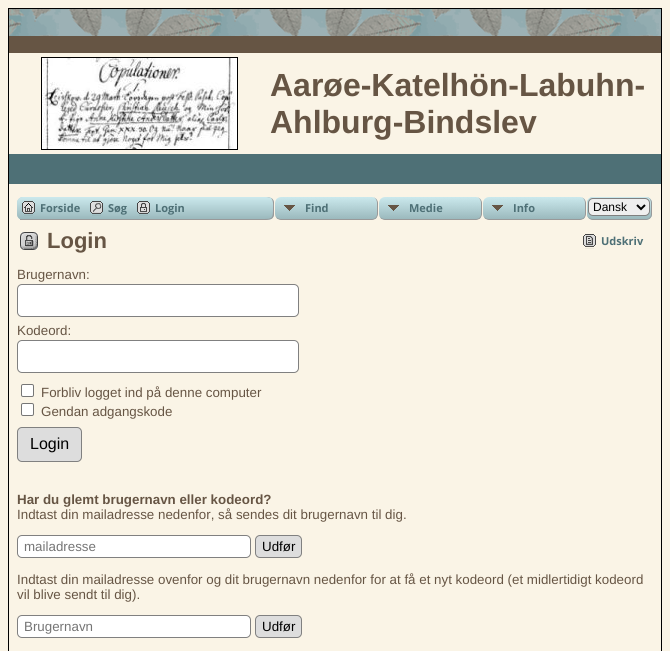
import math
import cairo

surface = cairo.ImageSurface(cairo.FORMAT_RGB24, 670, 651)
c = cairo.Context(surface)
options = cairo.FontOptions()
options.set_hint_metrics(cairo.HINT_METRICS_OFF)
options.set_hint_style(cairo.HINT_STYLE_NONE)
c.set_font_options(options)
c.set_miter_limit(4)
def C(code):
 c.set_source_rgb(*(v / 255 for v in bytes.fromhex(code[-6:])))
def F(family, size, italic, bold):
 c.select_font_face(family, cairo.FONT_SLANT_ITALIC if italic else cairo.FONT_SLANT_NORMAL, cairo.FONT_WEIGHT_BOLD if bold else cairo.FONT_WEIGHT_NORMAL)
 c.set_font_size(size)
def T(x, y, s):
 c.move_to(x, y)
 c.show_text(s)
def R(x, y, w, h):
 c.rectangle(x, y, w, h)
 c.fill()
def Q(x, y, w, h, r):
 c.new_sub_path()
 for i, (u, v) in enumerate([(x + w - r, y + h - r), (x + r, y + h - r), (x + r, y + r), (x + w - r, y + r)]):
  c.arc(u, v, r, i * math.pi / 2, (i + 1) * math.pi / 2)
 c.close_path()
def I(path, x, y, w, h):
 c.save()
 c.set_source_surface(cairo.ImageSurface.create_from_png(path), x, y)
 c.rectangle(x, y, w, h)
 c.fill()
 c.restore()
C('faf4e6')
c.paint()
C('000000')
R(8,8,654,1)
R(661,8,1,643)
R(8,8,1,643)
I('1.png',9,9,652,27)
C('665544')
R(9,36,652,17)
c.rectangle(41.5,57.5,196,92)
C('000000')
c.set_line_width(1)
c.stroke()
I('2.png',42,58,195,91)
F('Liberation Sans',32,0,1)
C('665544')
T(270,96,'Aarøe-Katelhön-Labuhn-')
T(270,133,'Ahlburg-Bindslev')
C('4e7076')
R(9,154,652,30)
C('b4d1d6')
Q(17,197,636,23,6)
c.fill()
c.save()
Q(17,197,636,23,6)
c.clip()
gradient = cairo.LinearGradient(335,197,335,219)
gradient.add_color_stop_rgba(0,0.796,0.914,0.929,1)
gradient.add_color_stop_rgba(1,0.608,0.725,0.741,1)
c.set_source(gradient)
c.new_path()
c.move_to(23,197)
c.line_to(647,197)
c.curve_to(650.5,197,653,199.5,653,203)
c.line_to(653,219)
c.line_to(17,219)
c.line_to(17,203)
c.curve_to(17,199.5,19.5,197,23,197)
c.close_path()
c.fill()
c.restore()
C('999999')
R(20,219,243,1)
I('3.png',22,201,13,15)
F('Open Sans',11,0,1)
C('4e7076')
T(40,212,'Forside')
I('4.png',90,201,13,15)
T(108,212,'Søg')
I('5.png',137,201,13,15)
T(155,212,'Login')
C('faf4e6')
R(268,197,385,23)
c.save()
c.new_path()
c.move_to(263,197)
c.line_to(268,197)
c.curve_to(271.5,197,274,199.5,274,203)
c.line_to(274,214)
c.curve_to(274,217.5,271.5,220,268,220)
c.line_to(263,220)
c.close_path()
c.clip()
gradient = cairo.LinearGradient(268,197,268,219)
gradient.add_color_stop_rgba(0,0.796,0.914,0.929,1)
gradient.add_color_stop_rgba(1,0.608,0.725,0.741,1)
c.set_source(gradient)
R(263,197,11,22)
gradient = cairo.LinearGradient(268,219,268,241)
gradient.add_color_stop_rgba(0,0.796,0.914,0.929,1)
gradient.add_color_stop_rgba(1,0.608,0.725,0.741,1)
c.set_source(gradient)
R(263,219,11,1)
c.restore()
C('999999')
c.set_fill_rule(cairo.FILL_RULE_EVEN_ODD)
c.new_path()
c.move_to(263,197)
c.curve_to(267,197,273,196.5,274,202)
c.line_to(274,215)
c.curve_to(273,220.5,267,220,263,220)
c.close_path()
c.move_to(263,197)
c.line_to(269,197)
c.curve_to(274,198.5,273,205,273,208.5)
c.curve_to(273,218.5,272.5,219,263,219)
c.close_path()
c.fill()
I('6.png',275,197,102,22)
c.new_path()
c.move_to(281,197)
c.line_to(372,197)
c.curve_to(375,197,378,200,378,203)
c.line_to(378,214)
c.curve_to(378,217,375,220,372,220)
c.line_to(281,220)
c.curve_to(278,220,275,217,275,214)
c.line_to(275,203)
c.curve_to(275,200,278,197,281,197)
c.close_path()
c.move_to(281,197)
c.line_to(372,197)
c.curve_to(375,197,377,200,377,203)
c.line_to(377,214)
c.curve_to(377,217,375,219,372,219)
c.line_to(281,219)
c.curve_to(278,219,275,217,275,214)
c.line_to(275,203)
c.curve_to(275,200,278,197,281,197)
c.close_path()
c.fill()
C('4e7076')
T(305,212,'Find')
I('6.png',379,197,102,22)
C('999999')
c.new_path()
c.move_to(385,197)
c.line_to(476,197)
c.curve_to(479,197,482,200,482,203)
c.line_to(482,214)
c.curve_to(482,217,479,220,476,220)
c.line_to(385,220)
c.curve_to(382,220,379,217,379,214)
c.line_to(379,203)
c.curve_to(379,200,382,197,385,197)
c.close_path()
c.move_to(385,197)
c.line_to(476,197)
c.curve_to(479,197,481,200,481,203)
c.line_to(481,214)
c.curve_to(481,217,479,219,476,219)
c.line_to(385,219)
c.curve_to(382,219,379,217,379,214)
c.line_to(379,203)
c.curve_to(379,200,382,197,385,197)
c.close_path()
c.fill()
C('4e7076')
T(409,212,'Medie')
I('7.png',483,197,102,22)
C('999999')
c.new_path()
c.move_to(489,197)
c.line_to(580,197)
c.curve_to(583,197,586,200,586,203)
c.line_to(586,214)
c.curve_to(586,217,583,220,580,220)
c.line_to(489,220)
c.curve_to(486,220,483,217,483,214)
c.line_to(483,203)
c.curve_to(483,200,486,197,489,197)
c.close_path()
c.move_to(489,197)
c.line_to(580,197)
c.curve_to(583,197,585,200,585,203)
c.line_to(585,214)
c.curve_to(585,217,583,219,580,219)
c.line_to(489,219)
c.curve_to(486,219,483,217,483,214)
c.line_to(483,203)
c.curve_to(483,200,486,197,489,197)
c.close_path()
c.fill()
C('4e7076')
T(513,212,'Info')
C('b4d1d6')
Q(587,197,65,23,6)
c.fill()
c.save()
c.set_fill_rule(cairo.FILL_RULE_WINDING)
Q(587,197,65,23,6)
c.clip()
gradient = cairo.LinearGradient(619,197,619,219)
gradient.add_color_stop_rgba(0,0.796,0.914,0.929,1)
gradient.add_color_stop_rgba(1,0.608,0.725,0.741,1)
c.set_source(gradient)
c.new_path()
c.move_to(593,197)
c.line_to(646,197)
c.curve_to(649.5,197,652,199.5,652,203)
c.line_to(652,219)
c.line_to(587,219)
c.line_to(587,203)
c.curve_to(587,199.5,589.5,197,593,197)
c.close_path()
c.fill()
c.restore()
C('999999')
c.new_path()
c.move_to(593,197)
c.line_to(646,197)
c.curve_to(649,197,652,200,652,203)
c.line_to(652,214)
c.curve_to(652,217,649,220,646,220)
c.line_to(593,220)
c.curve_to(590,220,587,217,587,214)
c.line_to(587,203)
c.curve_to(587,200,590,197,593,197)
c.close_path()
c.move_to(593,197)
c.line_to(646,197)
c.curve_to(649,197,651,200,651,203)
c.line_to(651,214)
c.curve_to(651,217,649,219,646,219)
c.line_to(593,219)
c.curve_to(590,219,587,217,587,214)
c.line_to(587,203)
c.curve_to(587,200,590,197,593,197)
c.close_path()
c.fill()
C('efefef')
Q(588.5,198.5,61,17,4.5)
c.fill_preserve()
C('808080')
c.stroke()
c.new_path()
c.move_to(637,205)
c.line_to(641,209)
c.line_to(645,205)
C('000000')
c.set_line_width(2)
c.stroke()
F('Liberation Sans',12,0,0)
T(593,211,'Dansk')
I('8.png',20,232,18,18)
F('Liberation Sans',22,0,1)
C('665544')
T(47,248,'Login')
I('9.png',583,234,13,15)
F('Open Sans',11,0,1)
C('4e7076')
T(601,245,'Udskriv')
F('Liberation Sans',13.35,0,0)
C('665544')
T(17,279,'Brugernavn:')
C('ffffff')
Q(17.5,284.5,281,32,4.5)
c.fill_preserve()
C('808080')
c.set_line_width(1)
c.stroke()
C('665544')
T(17,335,'Kodeord:')
C('ffffff')
Q(17.5,340.5,281,32,4.5)
c.fill_preserve()
C('808080')
c.stroke()
C('ffffff')
Q(21.5,384.5,12,12,1.5)
c.fill_preserve()
C('767676')
c.stroke()
C('665544')
T(41,397,'Forbliv logget ind på denne computer')
C('ffffff')
Q(21.5,403.5,12,12,1.5)
c.fill_preserve()
C('767676')
c.stroke()
C('665544')
T(41,416,'Gendan adgangskode')
C('dddddd')
Q(17.5,427.5,64,34,4.5)
c.fill_preserve()
C('808080')
c.stroke()
F('Liberation Sans',16,0,0)
C('000000')
T(30,449,'Login')
F('Liberation Sans',13.35,0,1)
C('665544')
T(17,504,'Har du glemt brugernavn eller kodeord?')
F('Liberation Sans',13.35,0,0)
T(17,519,'Indtast din mailadresse nedenfor, så sendes dit brugernavn til dig.')
C('ffffff')
Q(17.5,535.5,233,22,4.5)
c.fill_preserve()
C('808080')
c.stroke()
C('757575')
T(24,551,'mailadresse')
C('dddddd')
Q(255.5,535.5,46,22,4.5)
c.fill_preserve()
C('808080')
c.stroke()
C('000000')
T(262,551,'Udfør')
C('665544')
T(17,584,'Indtast din mailadresse ovenfor og dit brugernavn nedenfor for at få et nyt kodeord (et midlertidigt kodeord')
T(17,599,'vil blive sendt til dig).')
C('ffffff')
Q(17.5,615.5,233,22,4.5)
c.fill_preserve()
C('808080')
c.stroke()
C('757575')
T(24,631,'Brugernavn')
C('dddddd')
Q(255.5,615.5,46,22,4.5)
c.fill_preserve()
C('808080')
c.stroke()
C('000000')
T(262,631,'Udfør')
surface.write_to_png('o.png')
